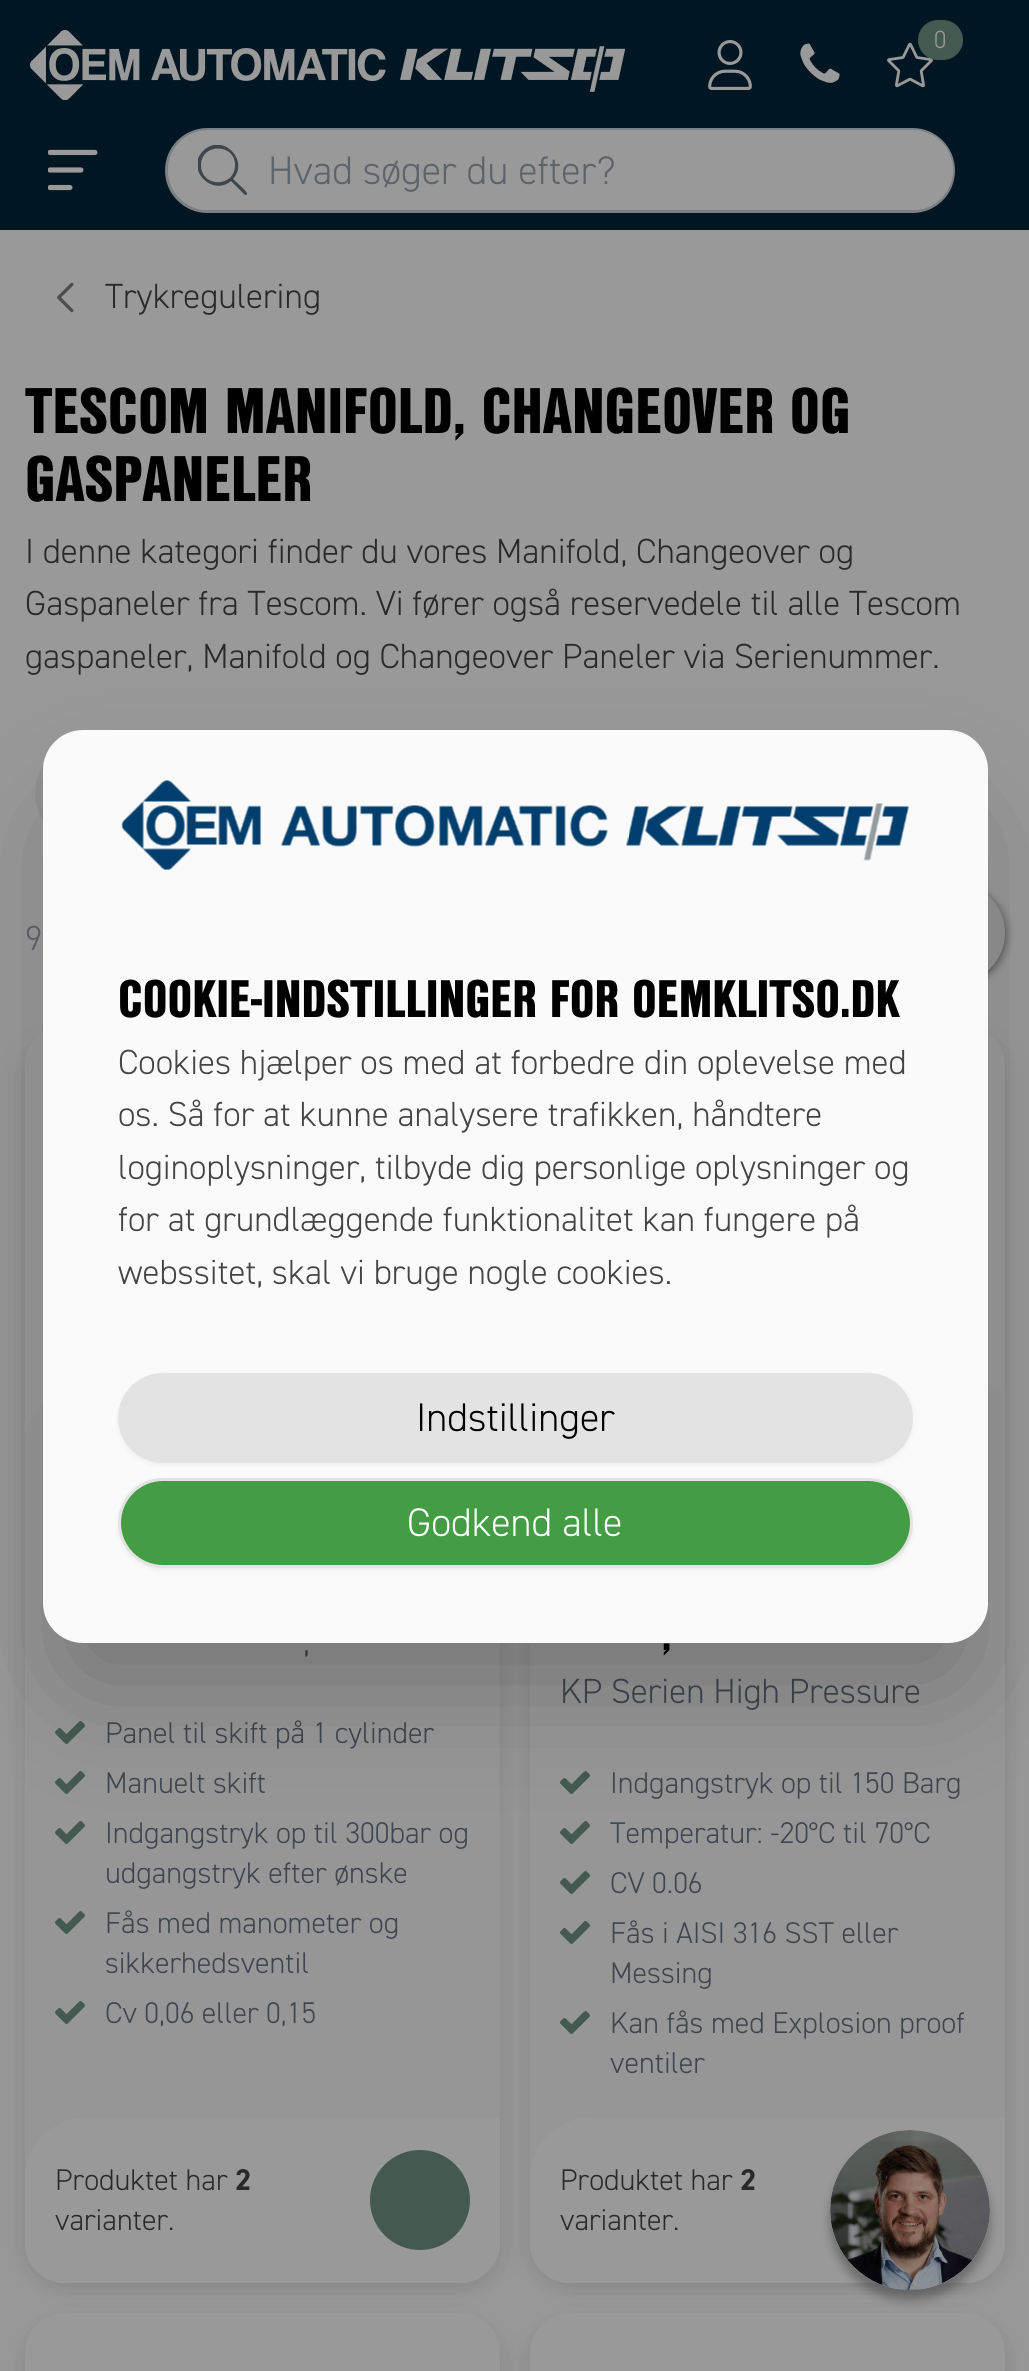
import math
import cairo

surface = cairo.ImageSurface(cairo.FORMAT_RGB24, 1029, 2371)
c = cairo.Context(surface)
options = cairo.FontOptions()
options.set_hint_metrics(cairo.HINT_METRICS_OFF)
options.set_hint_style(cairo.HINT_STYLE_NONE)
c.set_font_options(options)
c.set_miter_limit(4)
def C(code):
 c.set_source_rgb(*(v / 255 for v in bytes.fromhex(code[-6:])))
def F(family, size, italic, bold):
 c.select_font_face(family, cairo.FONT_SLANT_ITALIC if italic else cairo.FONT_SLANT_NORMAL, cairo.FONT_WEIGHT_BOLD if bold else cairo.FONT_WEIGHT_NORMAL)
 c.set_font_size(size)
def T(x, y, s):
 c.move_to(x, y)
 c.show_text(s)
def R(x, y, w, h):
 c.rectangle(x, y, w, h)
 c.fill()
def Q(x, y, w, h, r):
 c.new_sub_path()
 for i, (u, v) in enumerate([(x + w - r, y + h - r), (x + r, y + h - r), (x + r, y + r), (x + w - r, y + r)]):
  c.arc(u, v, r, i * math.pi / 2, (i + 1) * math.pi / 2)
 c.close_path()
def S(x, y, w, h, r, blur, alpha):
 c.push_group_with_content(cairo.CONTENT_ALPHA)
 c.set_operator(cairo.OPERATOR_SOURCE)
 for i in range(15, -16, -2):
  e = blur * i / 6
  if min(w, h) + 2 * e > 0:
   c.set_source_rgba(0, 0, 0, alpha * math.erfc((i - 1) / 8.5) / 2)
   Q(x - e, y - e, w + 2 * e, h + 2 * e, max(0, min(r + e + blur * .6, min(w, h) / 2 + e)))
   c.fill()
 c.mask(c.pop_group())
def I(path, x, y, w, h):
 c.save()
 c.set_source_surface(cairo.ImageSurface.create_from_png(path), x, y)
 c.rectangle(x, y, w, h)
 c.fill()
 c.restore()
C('999999')
c.paint()
C('001723')
R(0,0,1029,230)
I('1.png',30,30,595,70)
I('2.png',708,40,44,50)
I('3.png',800,43,40,40)
I('4.png',887,42,46,46)
C('445a50')
Q(918,20,45,40,20)
c.fill()
F('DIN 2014 Light',25,0,0)
C('999999')
T(934,48,'0')
I('5.png',48,149,50,42)
Q(166.5,129.5,787,82,41)
c.fill_preserve()
C('7d8083')
c.set_line_width(3)
c.stroke()
C('999999')
Q(168,130,785,80,40)
c.fill()
c.save()
c.rectangle(198,145,50,50)
c.clip()
C('40444d')
c.new_path()
c.move_to(235,165)
c.curve_to(235,143,201,143,201,165)
c.curve_to(201,188,235,188,235,165)
c.close_path()
c.move_to(231,181)
c.curve_to(212,197,185,169,203,151)
c.curve_to(222,132,250,160,233,179)
c.curve_to(235,181,248,192,247,194)
c.curve_to(247,195,246,195,245,195)
c.close_path()
c.fill()
c.restore()
F('DIN 2014 Light',40,0,0)
C('5e6269')
T(268,184,'Hvad søger du efter?')
I('6.png',57,282,17,31)
F('DIN 2014 Light',35,0,0)
C('292929')
T(105,308,'Trykregulering')
F('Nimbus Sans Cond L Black',62.5,0,0)
C('000000')
T(25,433,'TESCOM MANIFOLD, CHANGEOVER OG')
T(25,501,'GASPANELER')
F('DIN 2014 Light',35,0,0)
C('292929')
T(25,563,'I denne kategori finder du vores Manifold, Changeover og')
T(25,615,'Gaspaneler fra Tescom. Vi fører også reservedele til alle Tescom')
T(25,668,'gaspaneler, Manifold og Changeover Paneler via Serienummer.')
C('919191')
Q(35,743,525,100,50)
c.fill()
C('5e6269')
T(25,950,'9')
C('000000')
S(908,888,95,95,47.5,2.5,.3)
S(908,885,100,100,50,4,.3)
C('919191')
c.arc(955,933,50,0,2 * math.pi)
c.fill()
C('000000')
S(23,1038,465,1247,35,12.5,.1)
S(38,1038,465,1247,35,12.5,.1)
C('999999')
Q(25,1025,475,1258,40)
c.fill()
C('969696')
c.new_path()
c.move_to(85,1385)
c.line_to(500,1385)
c.line_to(500,2243)
c.curve_to(500,2265,482,2283,460,2283)
c.line_to(65,2283)
c.curve_to(43,2283,25,2265,25,2243)
c.line_to(25,1445)
c.curve_to(25,1412,52,1385,85,1385)
c.close_path()
c.fill()
C('40444d')
T(303,1653,',')
I('7.png',55,1721,30,23)
F('DIN 2014 Light',30,0,0)
T(105,1743,'Panel til skift på 1 cylinder')
I('7.png',55,1771,30,23)
T(105,1793,'Manuelt skift')
I('7.png',55,1821,30,23)
T(105,1843,'Indgangstryk op til 300bar og')
T(105,1883,'udgangstryk efter ønske')
I('7.png',55,1911,30,23)
T(105,1933,'Fås med manometer og')
T(105,1973,'sikkerhedsventil')
I('7.png',55,2001,30,23)
T(105,2023,'Cv 0,06 eller 0,15')
C('999999')
c.new_path()
c.move_to(85,2118)
c.line_to(500,2118)
c.line_to(500,2243)
c.curve_to(500,2265,482,2283,460,2283)
c.line_to(65,2283)
c.curve_to(43,2283,25,2265,25,2243)
c.line_to(25,2178)
c.curve_to(25,2145,52,2118,85,2118)
c.close_path()
c.fill()
C('292929')
T(55,2190,'Produktet har')
F('DIN 2014',30,0,1)
T(235,2190,'2')
F('DIN 2014 Light',30,0,0)
T(55,2230,'varianter.')
C('445a50')
c.new_path()
c.arc(420,2200,48.5,0,2 * math.pi)
c.fill_preserve()
c.stroke()
C('000000')
S(528,1038,465,1247,35,12.5,.1)
S(543,1038,465,1247,35,12.5,.1)
C('999999')
Q(530,1025,475,1258,40)
c.fill()
C('969696')
c.new_path()
c.move_to(590,1385)
c.line_to(1005,1385)
c.line_to(1005,2243)
c.curve_to(1005,2265,987,2283,965,2283)
c.line_to(570,2283)
c.curve_to(548,2283,530,2265,530,2243)
c.line_to(530,1445)
c.curve_to(530,1412,557,1385,590,1385)
c.close_path()
c.fill()
F('Nimbus Sans Cond L Black',45,0,0)
C('000000')
T(662,1650,',')
F('DIN 2014 Light',35,0,0)
C('40444d')
T(560,1703,'KP Serien High Pressure')
I('7.png',560,1771,30,23)
F('DIN 2014 Light',30,0,0)
T(610,1793,'Indgangstryk op til 150 Barg')
I('7.png',560,1821,30,23)
T(610,1843,'Temperatur: -20°C til 70°C')
I('7.png',560,1871,30,23)
T(610,1893,'CV 0.06')
I('7.png',560,1921,30,23)
T(610,1943,'Fås i AISI 316 SST eller')
T(610,1983,'Messing')
I('7.png',560,2011,30,23)
T(610,2033,'Kan fås med Explosion proof')
T(610,2073,'ventiler')
C('999999')
c.new_path()
c.move_to(590,2118)
c.line_to(1005,2118)
c.line_to(1005,2243)
c.curve_to(1005,2265,987,2283,965,2283)
c.line_to(570,2283)
c.curve_to(548,2283,530,2265,530,2243)
c.line_to(530,2178)
c.curve_to(530,2145,557,2118,590,2118)
c.close_path()
c.fill()
C('292929')
T(560,2190,'Produktet har')
F('DIN 2014',30,0,1)
T(740,2190,'2')
F('DIN 2014 Light',30,0,0)
T(560,2230,'varianter.')
C('000000')
S(23,2325,465,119,35,12.5,.1)
S(38,2325,465,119,35,12.5,.1)
C('999999')
Q(25,2313,475,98,40)
c.fill()
C('000000')
S(528,2325,465,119,35,12.5,.1)
S(543,2325,465,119,35,12.5,.1)
C('999999')
Q(530,2313,475,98,40)
c.fill()
C('000000')
S(73,823,885,852,10,62.5,.25)
C('fafafa')
Q(43,730,945,913,40)
c.fill()
I('8.png',121,780,789,90)
F('Nimbus Sans Cond L Black',51.25,0,0)
C('000000')
T(118,1017,'COOKIE-INDSTILLINGER FOR OEMKLITSO.DK')
F('DIN 2014 Light',35,0,0)
C('444444')
T(118,1074,'Cookies hjælper os med at forbedre din oplevelse med')
T(118,1126,'os. Så for at kunne analysere trafikken, håndtere')
T(118,1179,'loginoplysninger, tilbyde dig personlige oplysninger og')
T(118,1231,'for at grundlæggende funktionalitet kan fungere på')
T(118,1284,'webssitet, skal vi bruge nogle cookies.')
C('000000')
S(118,1375,795,90,45,2.5,.05)
C('e3e3e3')
Q(119.5,1374.5,792,87,43.5)
c.fill_preserve()
c.stroke()
F('DIN 2014 Light',40,0,0)
C('000000')
T(416,1431,'Indstillinger')
C('000000')
S(118,1480,795,90,45,2.5,.05)
C('449d44')
Q(119.5,1479.5,792,87,43.5)
c.fill_preserve()
C('e3e3e3')
c.stroke()
C('ffffff')
T(407,1536,'Godkend alle')
C('000000')
S(830,2140,160,160,80,5,.3)
C('999999')
c.arc(910,2210,80,0,2 * math.pi)
c.fill()
I('9.png',830,2130,160,160)
surface.write_to_png('o.png')
